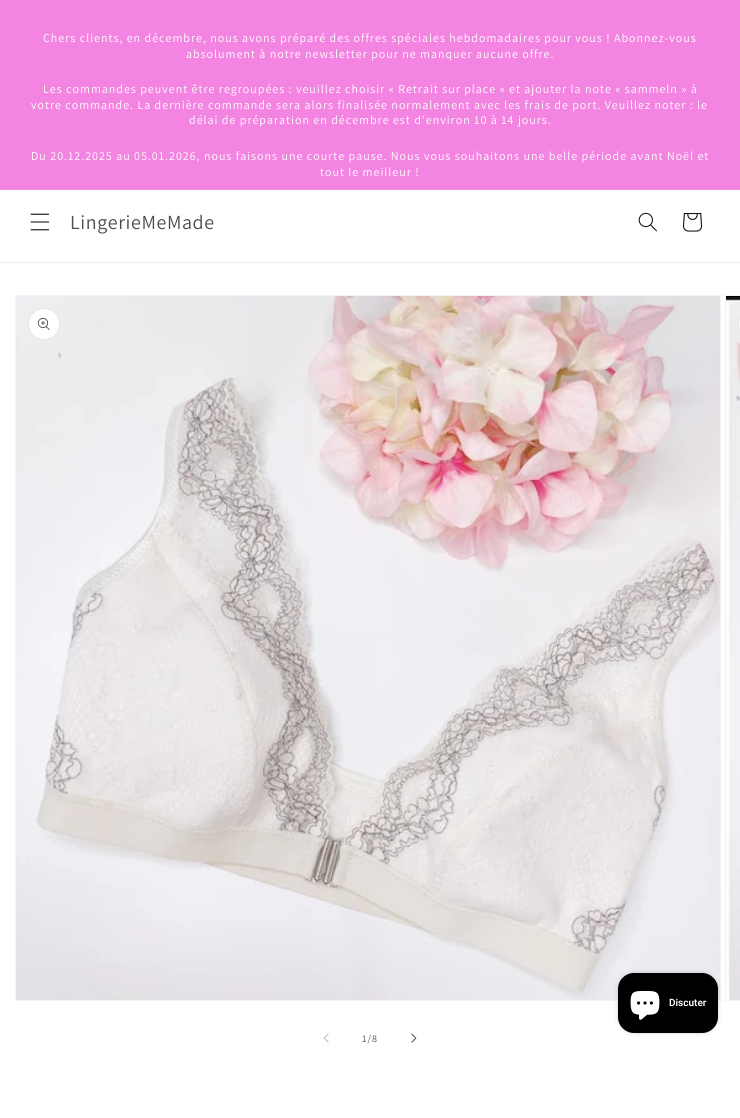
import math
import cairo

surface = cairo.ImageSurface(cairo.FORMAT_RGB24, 740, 1118)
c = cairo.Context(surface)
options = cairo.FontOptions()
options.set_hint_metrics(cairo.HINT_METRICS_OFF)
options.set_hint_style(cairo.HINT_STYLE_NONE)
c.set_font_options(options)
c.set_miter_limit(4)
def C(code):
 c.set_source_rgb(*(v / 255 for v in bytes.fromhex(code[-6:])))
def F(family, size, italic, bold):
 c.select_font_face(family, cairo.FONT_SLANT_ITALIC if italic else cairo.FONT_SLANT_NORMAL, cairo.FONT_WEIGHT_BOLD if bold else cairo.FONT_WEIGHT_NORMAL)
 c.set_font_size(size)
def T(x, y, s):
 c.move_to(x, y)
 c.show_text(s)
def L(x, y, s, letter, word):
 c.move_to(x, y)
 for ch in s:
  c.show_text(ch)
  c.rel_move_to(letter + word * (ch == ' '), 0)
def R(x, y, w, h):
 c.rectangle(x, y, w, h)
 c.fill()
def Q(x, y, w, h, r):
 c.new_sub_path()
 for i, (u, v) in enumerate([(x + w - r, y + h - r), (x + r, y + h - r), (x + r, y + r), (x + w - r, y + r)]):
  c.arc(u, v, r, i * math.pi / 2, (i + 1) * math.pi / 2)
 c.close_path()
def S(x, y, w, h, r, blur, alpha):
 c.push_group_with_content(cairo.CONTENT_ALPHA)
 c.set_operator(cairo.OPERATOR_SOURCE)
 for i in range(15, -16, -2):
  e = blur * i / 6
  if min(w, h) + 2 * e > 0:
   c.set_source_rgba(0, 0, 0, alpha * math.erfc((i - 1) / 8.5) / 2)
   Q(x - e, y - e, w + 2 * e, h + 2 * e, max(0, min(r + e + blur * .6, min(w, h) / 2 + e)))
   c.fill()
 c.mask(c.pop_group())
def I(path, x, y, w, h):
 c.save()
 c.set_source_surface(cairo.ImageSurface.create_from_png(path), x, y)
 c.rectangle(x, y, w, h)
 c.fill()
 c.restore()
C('ffffff')
c.paint()
C('f384e1')
R(0,0,740,189)
F('Assistant',12,0,0)
C('ffffff')
L(43,42,'Chers clients, en décembre, nous avons préparé des offres spéciales hebdomadaires pour vous ! Abonnez-vous',1,0)
L(186,58,'absolument à notre newsletter pour ne manquer aucune offre.',1,0)
L(43,93,'Les commandes peuvent être regroupées : veuillez choisir « Retrait sur place » et ajouter la note « sammeln » à',1,0)
L(31,109,'votre commande. La dernière commande sera alors finalisée normalement avec les frais de port. Veuillez noter : le',1,0)
L(189,124,'délai de préparation en décembre est d\'environ 10 à 14 jours.',1,0)
C('f48ee3')
R(0,189,740,1)
C('ffffff')
L(31,160,'Du 20.12.2025 au 05.01.2026, nous faisons une courte pause. Nous vous souhaitons une belle période avant Noël et',1,0)
L(320,176,'tout le meilleur !',1,0)
C('ececec')
R(0,262,740,1)
I('1.png',30,213,20,18)
F('Assistant',20,0,0)
C('4d4d4d')
L(70,229,'LingerieMeMade',.6,0)
I('2.png',638,212,19,20)
I('3.png',683,213,20,19)
c.rectangle(15.5,295.5,705,705)
C('f3f3f3')
c.set_line_width(1)
c.stroke()
I('5.png',16,296,704,704)
c.rectangle(725.5,295.5,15,705)
c.stroke()
I('7.png',726,296,14,704)
C('000000')
S(618,973,100,60,16,2.5,.15)
C('000000')
Q(618,973,100,60,16)
c.fill()
I('4.png',630,991,30,29)
F('Roboto SemiBold',10,0,0)
C('ffffff')
T(669,1006,'Discuter')
c.new_path()
c.arc(44,324,16,0,2 * math.pi)
c.fill()
c.arc(44,324,15.5,0,2 * math.pi)
c.set_source_rgba(0.071,0.071,0.071,0.1)
c.stroke()
I('6.png',38,318,12,12)
C('ffffff')
c.new_path()
c.move_to(754,308)
c.line_to(740,308)
c.line_to(740,340)
c.line_to(754,340)
c.curve_to(745,340,738,333,738,324)
c.curve_to(738,315,745,308,754,308)
c.close_path()
c.fill()
Q(738.5,308.5,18,31,15.5)
c.set_source_rgba(0.071,0.071,0.071,0.1)
c.stroke()
I('8.png',323,1033,6,10)
F('Assistant',10,0,0)
C('4d4d4d')
L(362,1042,'1/8',1,0)
I('9.png',411,1033,6,10)
surface.write_to_png('o.png')
